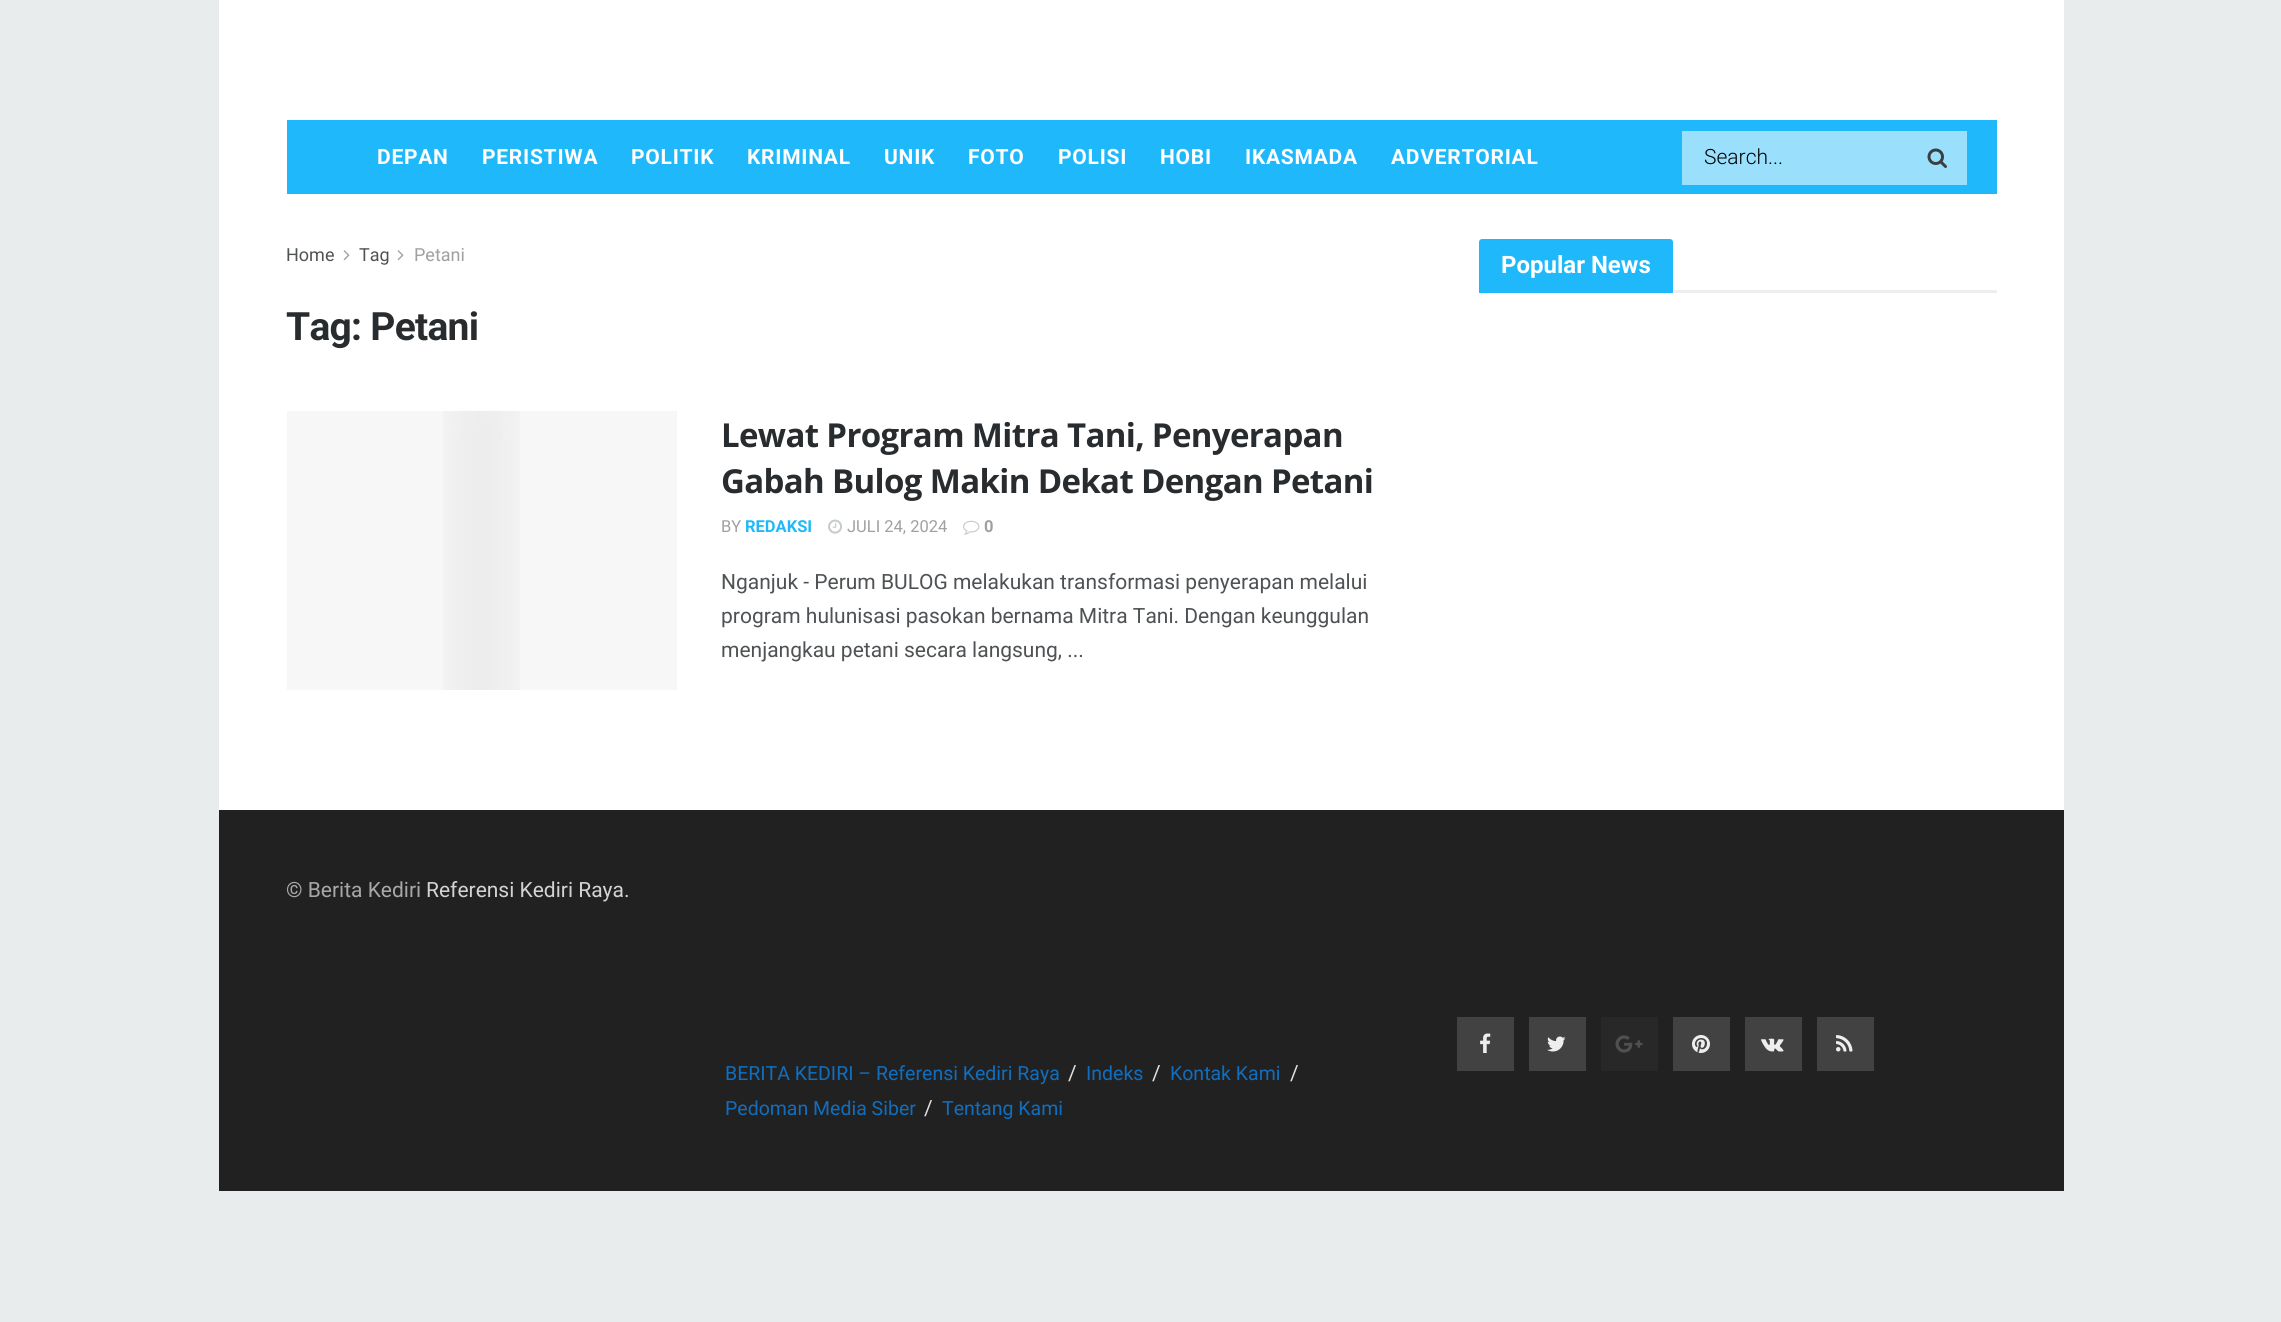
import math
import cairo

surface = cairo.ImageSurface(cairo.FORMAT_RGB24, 2281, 1322)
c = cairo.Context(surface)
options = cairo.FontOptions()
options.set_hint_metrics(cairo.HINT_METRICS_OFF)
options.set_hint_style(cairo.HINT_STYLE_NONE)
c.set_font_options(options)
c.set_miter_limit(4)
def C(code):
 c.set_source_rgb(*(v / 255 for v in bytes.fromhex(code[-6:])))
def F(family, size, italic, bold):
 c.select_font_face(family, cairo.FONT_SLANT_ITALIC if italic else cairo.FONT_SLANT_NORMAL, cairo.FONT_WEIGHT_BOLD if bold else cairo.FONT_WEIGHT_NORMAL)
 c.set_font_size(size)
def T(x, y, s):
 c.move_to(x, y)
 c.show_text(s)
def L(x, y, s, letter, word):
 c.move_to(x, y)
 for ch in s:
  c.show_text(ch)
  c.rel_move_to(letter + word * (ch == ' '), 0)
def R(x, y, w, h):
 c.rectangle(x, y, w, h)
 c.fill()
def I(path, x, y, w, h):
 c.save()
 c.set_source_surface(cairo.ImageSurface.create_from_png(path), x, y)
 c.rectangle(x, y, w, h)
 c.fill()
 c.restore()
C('e9ecec')
c.paint()
C('ffffff')
R(219,0,1845,810)
C('1fb9fb')
R(287,120,1710,74)
F('Roboto',21,0,1)
C('ffffff')
L(377,164,'DEPAN',.75,0)
L(482,164,'PERISTIWA',.75,0)
L(631,164,'POLITIK',.75,0)
L(747,164,'KRIMINAL',.75,0)
L(884,164,'UNIK',.75,0)
L(968,164,'FOTO',.75,0)
L(1058,164,'POLISI',.75,0)
L(1160,164,'HOBI',.75,0)
L(1245,164,'IKASMADA',.75,0)
L(1391,164,'ADVERTORIAL',.75,0)
C('9ae0fd')
R(1682,131,285,54)
F('Roboto Light',21,0,0)
C('000000')
T(1704,164,'Search...')
I('1.png',1927,148,20,20)
F('Roboto',18,0,0)
C('4f5254')
T(286,261,'Home')
I('2.png',343,250,7,11)
T(359,261,'Tag')
I('2.png',397,250,7,11)
C('a0a0a0')
T(414,261,'Petani')
F('Roboto',39,0,1)
C('282c2e')
L(286,340,'Tag: Petani',-.75,0)
C('f7f7f7')
R(287,411,390,279)
I('3.png',443,411,77,279)
F('Open Sans',33,0,1)
C('282c2e')
L(721,447,'Lewat Program Mitra Tani, Penyerapan',-.65,0)
L(721,493,'Gabah Bulog Makin Dekat Dengan Petani',-.65,0)
F('Roboto',16.5,0,0)
C('a0a0a0')
T(721,532,'BY')
F('Roboto',16.5,0,1)
C('1fb9fb')
T(745,532,'REDAKSI')
I('4.png',828,519,15,15)
F('Roboto',16.5,0,0)
C('a0a0a0')
T(847,532,'JULI 24, 2024')
I('5.png',963,520,17,15)
F('Roboto',16.5,0,1)
T(984,532,'0')
F('Roboto',21,0,0)
C('4f5254')
T(721,589,'Nganjuk - Perum BULOG melakukan transformasi penyerapan melalui')
T(721,623,'program hulunisasi pasokan bernama Mitra Tani. Dengan keunggulan')
T(721,657,'menjangkau petani secara langsung, ...')
C('eeeeee')
R(1673,290,324,3)
C('1fb9fb')
c.new_path()
c.move_to(1482,239)
c.line_to(1670,239)
c.curve_to(1671.5,239,1673,240.5,1673,242)
c.line_to(1673,293)
c.line_to(1479,293)
c.line_to(1479,242)
c.curve_to(1479,240.5,1480.5,239,1482,239)
c.close_path()
c.fill()
F('Roboto',24,0,1)
C('ffffff')
T(1501,273,'Popular News')
C('212121')
R(219,810,1845,381)
F('Roboto',21,0,0)
C('a8a8aa')
T(286,897,'© Berita Kediri')
C('d3d3d3')
T(426,897,'Referensi Kediri Raya.')
C('424242')
R(1457,1017,57,54)
I('6.png',1480,1033,11,20)
R(1529,1017,57,54)
I('7.png',1547,1036,19,16)
C('282828')
R(1601,1017,57,54)
I('8.png',1615,1035,28,18)
C('424242')
R(1673,1017,57,54)
I('9.png',1692,1035,18,18)
R(1745,1017,57,54)
I('10.png',1761,1038,23,14)
R(1817,1017,57,54)
I('11.png',1836,1035,17,17)
F('Roboto',19.5,0,0)
C('116ebf')
T(725,1080,'BERITA KEDIRI – Referensi Kediri Raya')
F('Roboto',21,0,0)
C('e0e0e0')
T(1068,1080,'/')
F('Roboto',19.5,0,0)
C('116ebf')
T(1086,1080,'Indeks')
F('Roboto',21,0,0)
C('e0e0e0')
T(1152,1080,'/')
F('Roboto',19.5,0,0)
C('116ebf')
T(1170,1080,'Kontak Kami')
F('Roboto',21,0,0)
C('e0e0e0')
T(1290,1080,'/')
F('Roboto',19.5,0,0)
C('116ebf')
T(725,1115,'Pedoman Media Siber')
F('Roboto',21,0,0)
C('e0e0e0')
T(924,1115,'/')
F('Roboto',19.5,0,0)
C('116ebf')
T(942,1115,'Tentang Kami')
surface.write_to_png('o.png')
